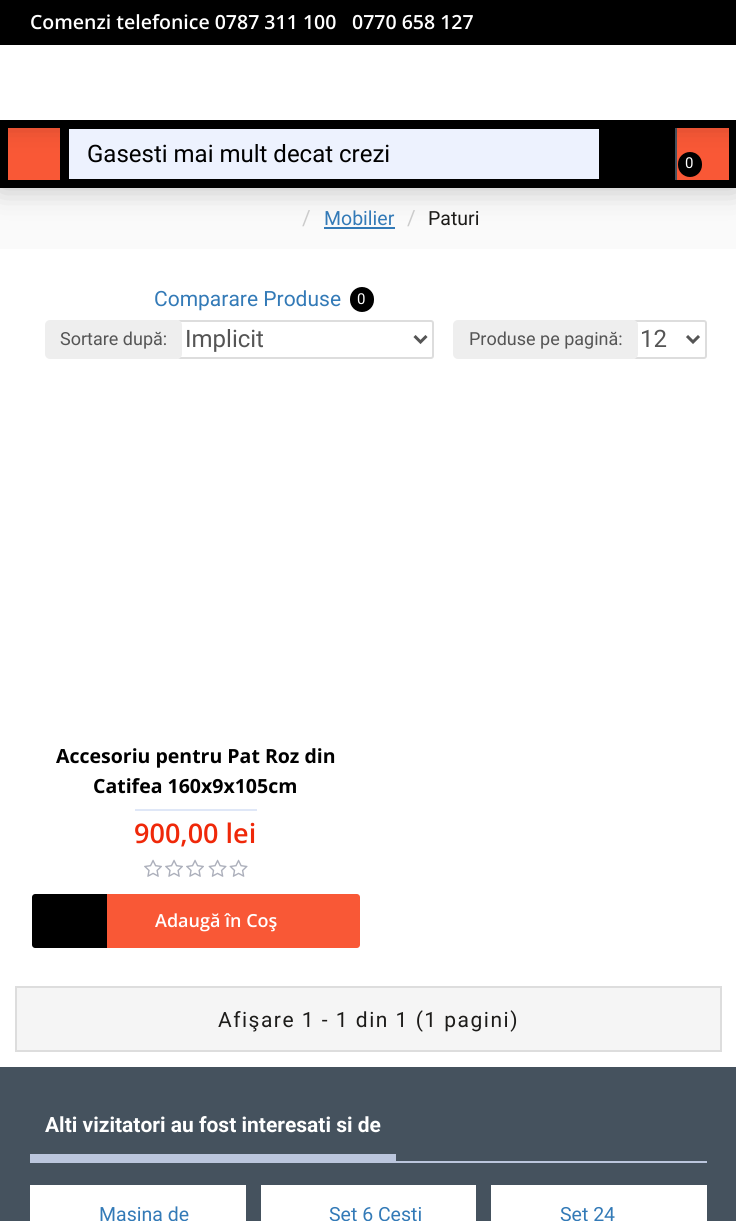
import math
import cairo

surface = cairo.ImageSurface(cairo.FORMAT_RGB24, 736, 1221)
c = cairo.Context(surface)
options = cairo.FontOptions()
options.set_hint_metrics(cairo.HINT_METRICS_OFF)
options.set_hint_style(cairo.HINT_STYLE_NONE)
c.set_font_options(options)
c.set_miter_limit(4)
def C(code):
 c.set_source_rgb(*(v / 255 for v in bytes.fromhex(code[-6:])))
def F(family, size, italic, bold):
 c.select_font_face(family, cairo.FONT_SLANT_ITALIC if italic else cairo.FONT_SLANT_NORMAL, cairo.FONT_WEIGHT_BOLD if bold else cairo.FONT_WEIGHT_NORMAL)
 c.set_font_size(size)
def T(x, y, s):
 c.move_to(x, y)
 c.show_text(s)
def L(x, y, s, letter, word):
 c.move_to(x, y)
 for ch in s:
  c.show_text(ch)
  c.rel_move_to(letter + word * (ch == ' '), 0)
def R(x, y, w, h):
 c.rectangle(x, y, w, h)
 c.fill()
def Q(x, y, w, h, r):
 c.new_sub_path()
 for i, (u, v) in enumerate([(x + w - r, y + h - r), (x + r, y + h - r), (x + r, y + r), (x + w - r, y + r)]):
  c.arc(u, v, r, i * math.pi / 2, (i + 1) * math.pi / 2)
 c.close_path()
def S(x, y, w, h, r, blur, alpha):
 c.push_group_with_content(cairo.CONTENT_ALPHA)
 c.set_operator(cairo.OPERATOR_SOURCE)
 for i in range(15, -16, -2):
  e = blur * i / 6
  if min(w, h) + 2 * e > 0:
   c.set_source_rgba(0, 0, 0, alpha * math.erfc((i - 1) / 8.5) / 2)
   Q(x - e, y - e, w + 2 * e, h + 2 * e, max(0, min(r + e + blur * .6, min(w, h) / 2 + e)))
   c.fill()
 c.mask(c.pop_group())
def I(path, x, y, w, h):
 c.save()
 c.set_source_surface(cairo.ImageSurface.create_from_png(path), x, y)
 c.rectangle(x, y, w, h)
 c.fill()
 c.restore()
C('ffffff')
c.paint()
C('fafafa')
R(0,188,736,61)
C('337ab7')
R(324,227,71,2)
C('000000')
S(0,120,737,68,0,15,.25)
C('000000')
R(0,120,736,68)
C('f95836')
R(8,128,52,52)
C('45525e')
R(675,128,2,52)
C('f95836')
R(677,128,52,52)
C('000000')
S(0,45,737,75,0,15,.25)
C('ffffff')
R(0,45,736,75)
C('000000')
R(0,0,736,45)
F('Open Sans SemiBold',19.5,0,0)
C('ffffff')
T(30,29,'Comenzi telefonice 0787 311 100')
T(352,29,'0770 658 127')
C('edf2fe')
R(69,129,530,50)
F('Roboto',24,0,0)
C('000000')
T(87,162,'Gasesti mai mult decat crezi')
Q(678,152,24,25,12)
c.fill()
F('Roboto',15,0,0)
C('ffffff')
T(685,168,'0')
F('Roboto',21,0,0)
C('cccccc')
T(302,225,'/')
F('Roboto',19.5,0,0)
C('337ab7')
T(324,225,'Mobilier')
F('Roboto',21,0,0)
C('cccccc')
T(407,225,'/')
F('Roboto',19.5,0,0)
C('1d1c1a')
T(428,225,'Paturi')
F('Roboto',21,0,0)
C('337ab7')
T(154,306,'Comparare Produse')
C('000000')
Q(350,287,24,25,12)
c.fill()
F('Roboto',15,0,0)
C('ffffff')
T(357,304,'0')
Q(178,321,255,37,2)
C('dddddd')
c.stroke()
C('eeeeee')
Q(45,320,137,39,5)
c.fill()
F('Roboto',18,0,0)
C('555555')
T(60,345,'Sortare după:')
c.new_path()
c.move_to(414.5,336)
c.line_to(420.5,342)
c.line_to(426.5,336)
c.set_line_width(3)
c.stroke()
F('Roboto',24,0,0)
T(185,347,'Implicit')
Q(634,321,72,37,2)
C('dddddd')
c.set_line_width(2)
c.stroke()
C('eeeeee')
Q(453,320,185,39,5)
c.fill()
F('Roboto',18,0,0)
C('555555')
T(469,345,'Produse pe pagină:')
c.new_path()
c.move_to(687,336)
c.line_to(693,342)
c.line_to(699,336)
c.set_line_width(3)
c.stroke()
F('Roboto',24,0,0)
T(640,347,'12')
F('Open Sans',19.5,0,1)
C('000000')
T(56,763,'Accesoriu pentru Pat Roz din')
T(93,793,'Catifea 160x9x105cm')
C('dfe7f7')
R(135,809,122,2)
F('Open Sans SemiBold',27,0,0)
C('ef2809')
T(134,843,'900,00 lei')
I('1.png',144,859,18,18)
I('1.png',165,859,18,18)
I('1.png',186,859,18,18)
I('2.png',208,859,19,18)
I('2.png',229,859,19,18)
C('f95836')
c.new_path()
c.move_to(107,894)
c.line_to(357,894)
c.curve_to(358.5,894,360,895.5,360,897)
c.line_to(360,945)
c.curve_to(360,946.5,358.5,948,357,948)
c.line_to(107,948)
c.close_path()
c.fill()
C('000000')
c.new_path()
c.move_to(35,894)
c.line_to(107,894)
c.line_to(107,948)
c.line_to(35,948)
c.curve_to(33.5,948,32,946.5,32,945)
c.line_to(32,897)
c.curve_to(32,895.5,33.5,894,35,894)
c.close_path()
c.fill()
F('Open Sans SemiBold',18,0,0)
C('ffffff')
T(155,927,'Adaugă în Coş')
C('f5f5f5')
c.rectangle(16,987,705,64)
c.fill_preserve()
C('dddddd')
c.set_line_width(2)
c.stroke()
F('Roboto',21,0,0)
C('1d1c1a')
L(218,1027,'Afişare 1 - 1 din 1 (1 pagini)',1.5,0)
C('45525e')
R(0,1067,736,154)
C('bbc6dd')
R(30,1161,677,2)
R(30,1154,366,7)
F('Roboto',21,0,1)
C('ffffff')
T(45,1132,'Alti vizitatori au fost interesati si de')
R(30,1185,216,36)
F('Roboto',19.5,0,0)
C('337ab7')
T(99,1221,'Masina de')
C('ffffff')
R(261,1185,215,36)
C('337ab7')
T(329,1221,'Set 6 Cesti')
C('ffffff')
R(491,1185,216,36)
C('337ab7')
T(560,1221,'Set 24')
surface.write_to_png('o.png')
